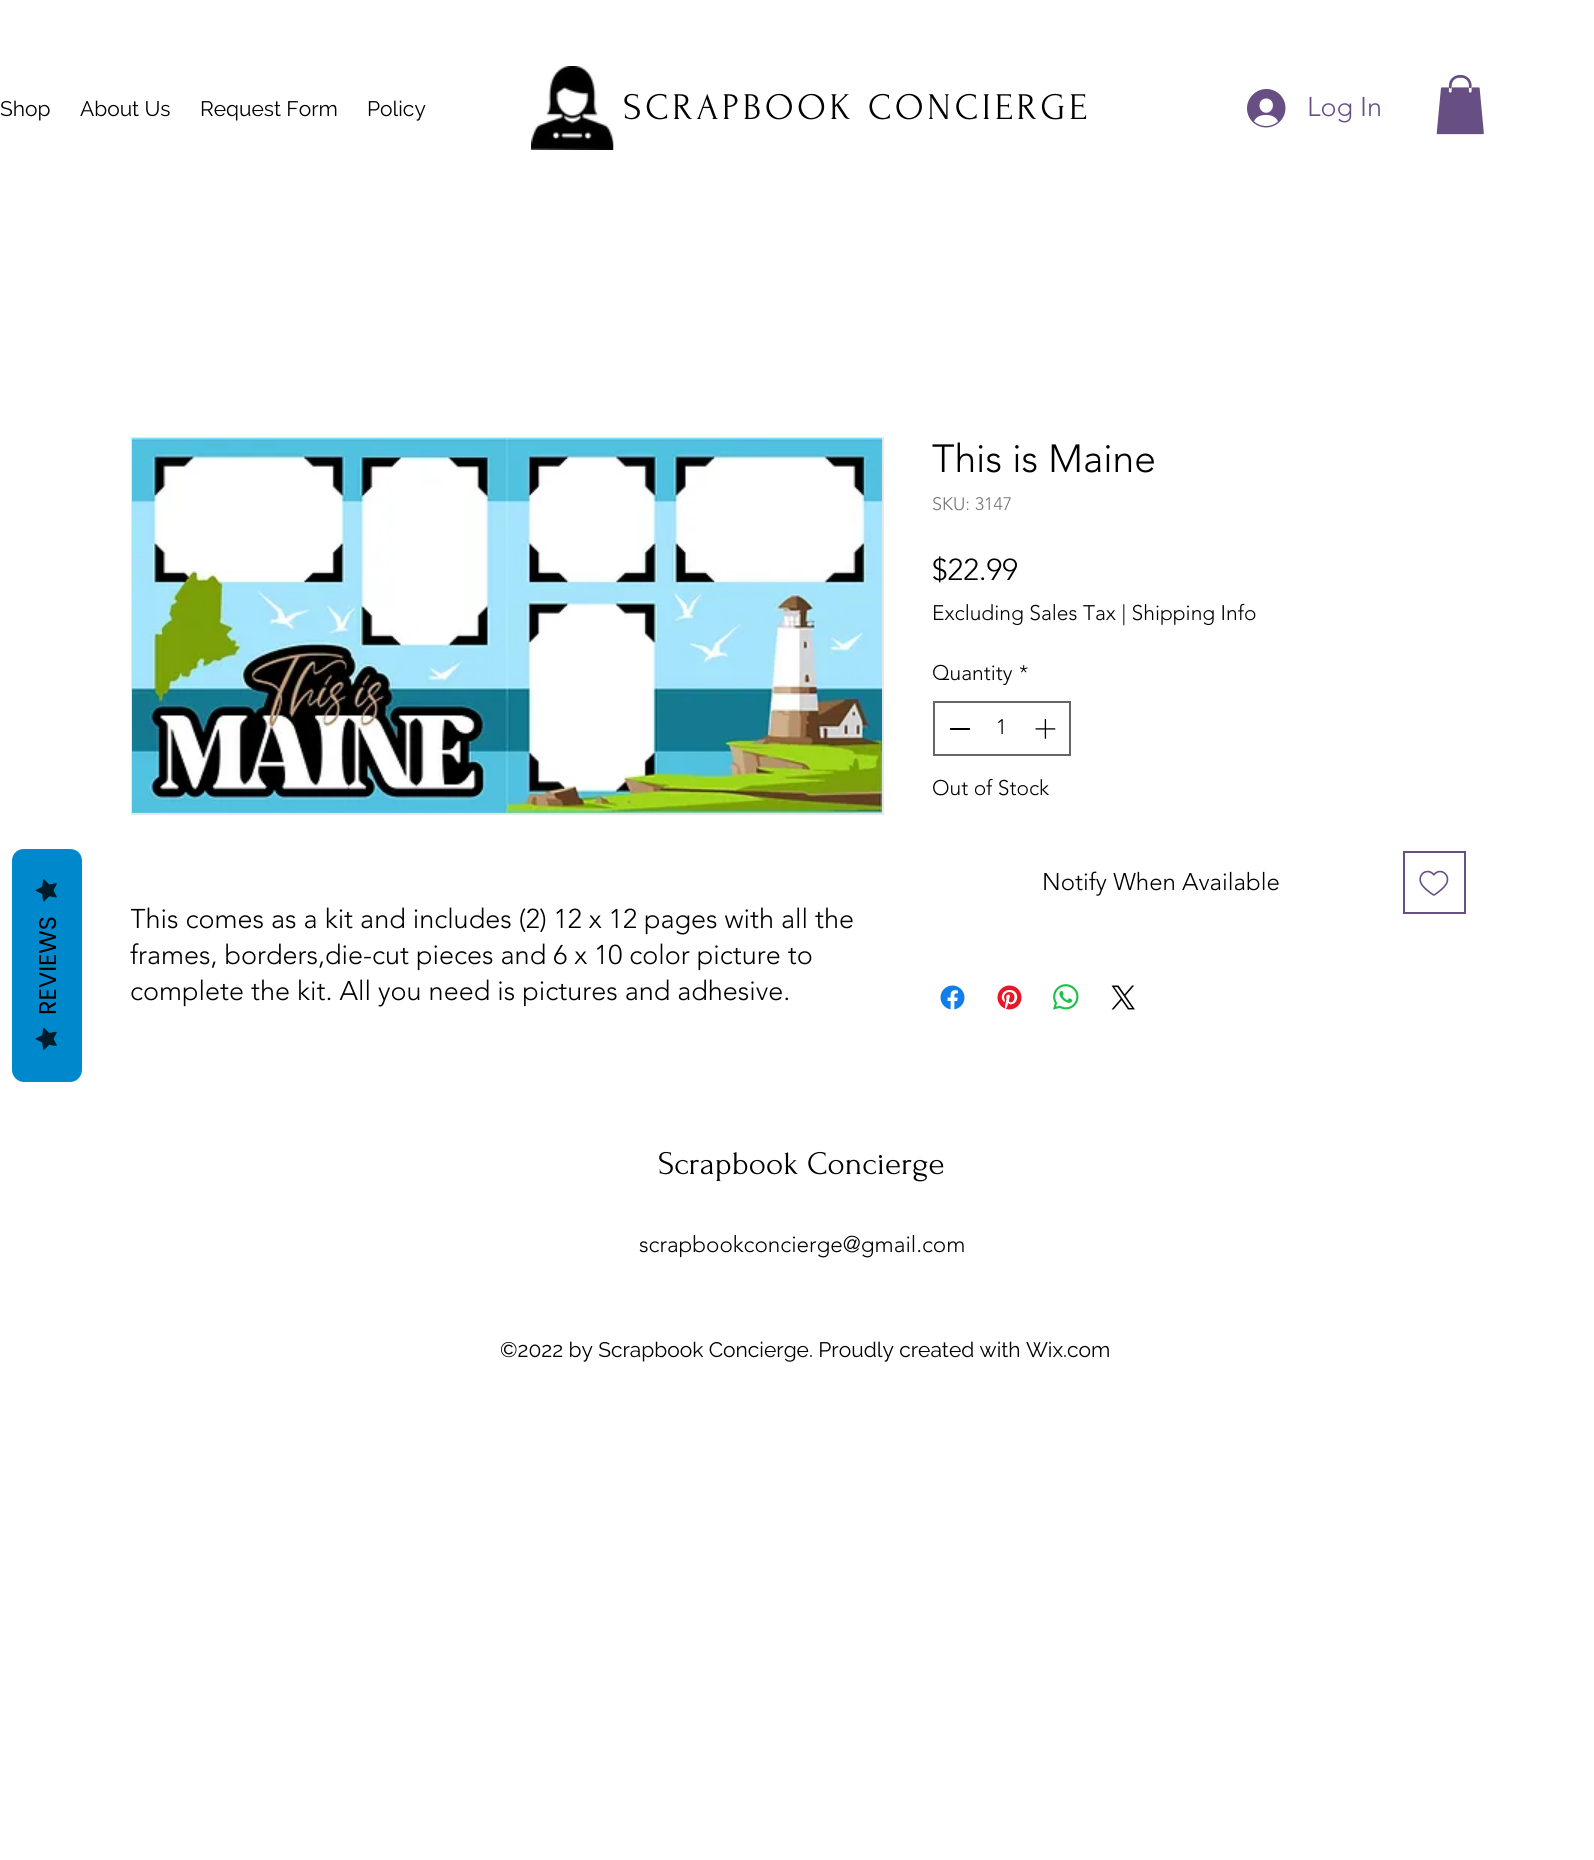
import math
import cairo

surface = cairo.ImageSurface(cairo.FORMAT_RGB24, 1594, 1860)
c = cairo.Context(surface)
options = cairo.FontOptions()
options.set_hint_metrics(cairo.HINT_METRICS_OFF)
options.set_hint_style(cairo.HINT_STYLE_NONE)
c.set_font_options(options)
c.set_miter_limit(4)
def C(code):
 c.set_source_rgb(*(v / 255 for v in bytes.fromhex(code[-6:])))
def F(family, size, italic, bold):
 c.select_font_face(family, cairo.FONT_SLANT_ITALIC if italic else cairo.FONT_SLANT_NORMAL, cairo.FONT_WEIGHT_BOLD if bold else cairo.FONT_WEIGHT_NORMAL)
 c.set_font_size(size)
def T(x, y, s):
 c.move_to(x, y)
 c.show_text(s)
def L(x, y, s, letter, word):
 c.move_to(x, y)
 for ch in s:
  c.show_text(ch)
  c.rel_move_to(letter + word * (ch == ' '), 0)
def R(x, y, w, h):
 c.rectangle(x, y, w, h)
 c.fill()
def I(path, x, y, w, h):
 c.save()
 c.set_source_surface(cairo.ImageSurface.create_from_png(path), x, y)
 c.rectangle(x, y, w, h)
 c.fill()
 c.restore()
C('ffffff')
c.paint()
F('Raleway',21,0,0)
C('000000')
T(0,116,'Shop')
T(80,116,'About Us')
T(200,116,'Request Form')
T(367,116,'Policy')
I('1.png',531,66,83,84)
F('Forum',37.5,0,0)
L(623,119,'SCRAPBOOK CONCIERGE',3.75,0)
I('2.png',1247,89,39,39)
F('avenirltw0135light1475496 Light',27,0,0)
C('674f84')
T(1307,116,'Log In')
I('3.png',1436,75,48,60)
F('avenirltw0135light1475496 Light',39,0,0)
C('000000')
T(932,472,'This is Maine')
F('avenirltw0135light1475496 Light',18,0,0)
C('757575')
T(932,510,'SKU: 3147')
F('avenirltw0135light1475496 Light',30,0,0)
C('000000')
T(932,580,'$22.99')
F('avenirltw0135light1475496 Light',21,0,0)
T(932,620,'Excluding Sales Tax | Shipping Info')
T(932,680,'Quantity')
T(1019,680,'*')
c.rectangle(934,702,136,53)
C('666666')
c.stroke()
C('000000')
R(950,728,20,2)
T(996,734,'1')
I('4.png',1035,719,21,20)
T(932,795,'Out of Stock')
F('avenirltw0135light1475496 Light',24,0,0)
T(1042,890,'Notify When Available')
c.rectangle(1404,852,61,61)
C('674f84')
c.stroke()
I('5.png',1419,870,30,26)
I('6.png',940,985,25,25)
I('7.png',997,985,25,25)
I('8.png',1053,984,26,26)
I('9.png',1111,985,24,25)
c.rectangle(132,438,751,376)
C('e8e6e6')
c.stroke()
I('10.png',132,438,750,375)
c.save()
c.rectangle(131,902,750,108)
c.clip()
F('avenirltw0135light1475496 Light',27,0,0)
C('000000')
T(130,928,'This comes as a kit and includes (2) 12 x 12 pages with all the')
c.restore()
F('avenirltw0135light1475496 Light',27,0,0)
C('000000')
T(130,964,'frames, borders,die-cut pieces and 6 x 10 color picture to')
T(130,1000,'complete the kit. All you need is pictures and adhesive.')
F('Forum',33,0,0)
T(658,1174,'Scrapbook Concierge')
F('avenirltw0135light1475496 Light',22.5,0,0)
T(639,1252,'scrapbookconcierge@gmail.com')
F('Raleway',21,0,0)
T(500,1357,'©2022 by Scrapbook Concierge. Proudly created with Wix.com')
C('0088cc')
c.new_path()
c.move_to(12,1070)
c.line_to(12,861)
c.curve_to(12,854,17,849,24,849)
c.line_to(70,849)
c.curve_to(77,849,82,854,82,861)
c.line_to(82,1070)
c.curve_to(82,1076,77,1082,70,1082)
c.line_to(24,1082)
c.curve_to(17,1082,12,1076,12,1070)
c.close_path()
c.fill()
I('11.png',35,879,22,23)
F('Poppins',24,0,0)
C('000000')
c.save()
c.translate(56,1015)
c.rotate(-90 * math.pi / 180)
T(0,0,'REVIEWS')
c.restore()
I('12.png',35,1027,22,23)
surface.write_to_png('o.png')
